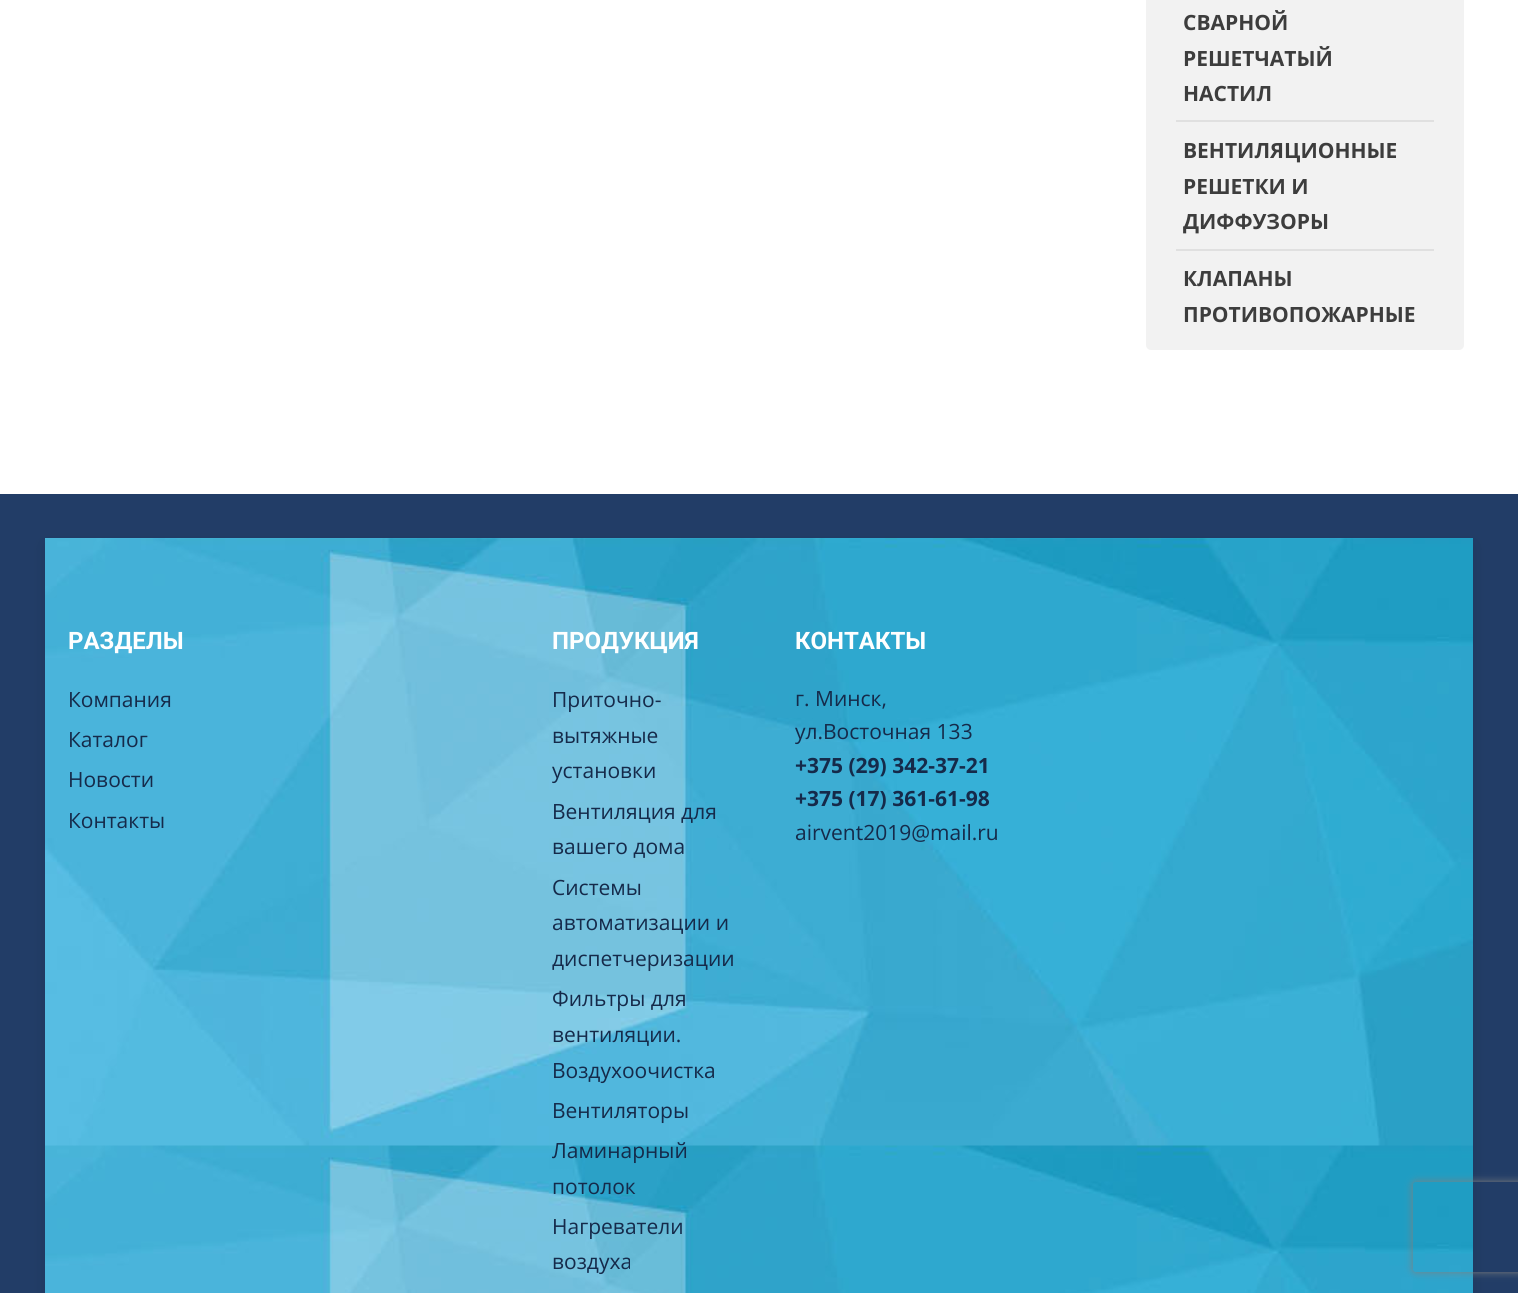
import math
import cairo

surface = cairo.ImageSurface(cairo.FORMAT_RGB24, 1518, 1293)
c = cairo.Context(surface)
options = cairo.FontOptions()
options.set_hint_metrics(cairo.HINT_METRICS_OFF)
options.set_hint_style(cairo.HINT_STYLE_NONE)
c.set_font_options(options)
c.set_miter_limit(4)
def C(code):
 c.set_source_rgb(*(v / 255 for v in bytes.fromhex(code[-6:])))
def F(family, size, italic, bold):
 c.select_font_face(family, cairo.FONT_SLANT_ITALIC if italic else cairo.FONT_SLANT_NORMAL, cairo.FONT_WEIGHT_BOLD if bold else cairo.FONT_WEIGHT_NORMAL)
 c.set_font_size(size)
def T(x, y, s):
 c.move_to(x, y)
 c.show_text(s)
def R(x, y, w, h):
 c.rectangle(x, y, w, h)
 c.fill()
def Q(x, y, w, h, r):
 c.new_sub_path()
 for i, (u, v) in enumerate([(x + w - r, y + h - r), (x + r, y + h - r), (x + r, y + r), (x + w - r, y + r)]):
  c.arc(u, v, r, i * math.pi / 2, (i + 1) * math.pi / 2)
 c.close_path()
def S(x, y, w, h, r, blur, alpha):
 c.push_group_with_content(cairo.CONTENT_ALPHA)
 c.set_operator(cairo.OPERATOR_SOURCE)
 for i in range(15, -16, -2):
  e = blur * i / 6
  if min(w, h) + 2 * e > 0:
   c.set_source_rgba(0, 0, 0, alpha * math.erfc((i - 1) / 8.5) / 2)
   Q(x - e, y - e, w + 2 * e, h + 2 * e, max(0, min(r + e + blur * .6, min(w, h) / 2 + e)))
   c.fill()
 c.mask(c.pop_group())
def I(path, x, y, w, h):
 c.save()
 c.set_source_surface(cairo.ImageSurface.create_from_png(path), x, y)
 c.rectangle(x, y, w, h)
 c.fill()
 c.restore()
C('ffffff')
c.paint()
C('f2f2f2')
Q(1146,-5,318,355,5)
c.fill()
F('Open Sans',21,0,1)
C('3d3d3d')
T(1183,30,'СВАРНОЙ')
T(1183,66,'РЕШЕТЧАТЫЙ')
T(1183,101,'НАСТИЛ')
C('e0e0e0')
R(1176,120,258,2)
C('3d3d3d')
T(1183,158,'ВЕНТИЛЯЦИОННЫЕ')
T(1183,194,'РЕШЕТКИ И')
T(1183,229,'ДИФФУЗОРЫ')
C('e0e0e0')
R(1176,249,258,2)
C('3d3d3d')
T(1183,286,'КЛАПАНЫ')
T(1183,322,'ПРОТИВОПОЖАРНЫЕ')
C('223d67')
R(0,494,1518,799)
C('000000')
S(45,545,1428,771,0,7.5,.1)
I('1.png',45,538,1428,755)
F('Roboto',24,0,1)
C('ffffff')
T(68,649,'РАЗДЕЛЫ')
F('Open Sans',21,0,0)
C('152a4a')
T(68,707,'Компания')
T(68,747,'Каталог')
T(68,787,'Новости')
T(68,828,'Контакты')
F('Roboto',24,0,1)
C('ffffff')
T(552,649,'ПРОДУКЦИЯ')
F('Open Sans',21,0,0)
C('152a4a')
T(552,707,'Приточно-')
T(552,743,'вытяжные')
T(552,778,'установки')
T(552,819,'Вентиляция для')
T(552,854,'вашего дома')
T(552,895,'Системы')
T(552,930,'автоматизации и')
T(552,966,'диспетчеризации')
T(552,1006,'Фильтры для')
T(552,1042,'вентиляции.')
T(552,1078,'Воздухоочистка')
T(552,1118,'Вентиляторы')
T(552,1158,'Ламинарный')
T(552,1194,'потолок')
T(552,1234,'Нагреватели')
T(552,1269,'воздуха')
F('Roboto',24,0,1)
C('ffffff')
T(795,649,'КОНТАКТЫ')
F('Open Sans',21,0,0)
C('152a4a')
T(795,706,'г. Минск,')
T(795,739,'ул.Восточная 133')
F('Open Sans',21,0,1)
T(795,773,'+375 (29) 342-37-21')
T(795,806,'+375 (17) 361-61-98')
F('Open Sans',21,0,0)
T(795,840,'airvent2019@mail.ru')
c.save()
c.set_fill_rule(cairo.FILL_RULE_EVEN_ODD)
c.new_path()
c.move_to(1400,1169)
c.line_to(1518,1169)
c.line_to(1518,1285)
c.line_to(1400,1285)
c.close_path()
c.move_to(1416,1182)
c.line_to(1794,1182)
c.curve_to(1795.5,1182,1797,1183.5,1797,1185)
c.line_to(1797,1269)
c.curve_to(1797,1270.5,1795.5,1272,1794,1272)
c.line_to(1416,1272)
c.curve_to(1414.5,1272,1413,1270.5,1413,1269)
c.line_to(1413,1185)
c.curve_to(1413,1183.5,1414.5,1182,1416,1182)
c.close_path()
c.clip()
C('808080')
S(1413,1182,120,90,3,4,1)
c.restore()
surface.write_to_png('o.png')
